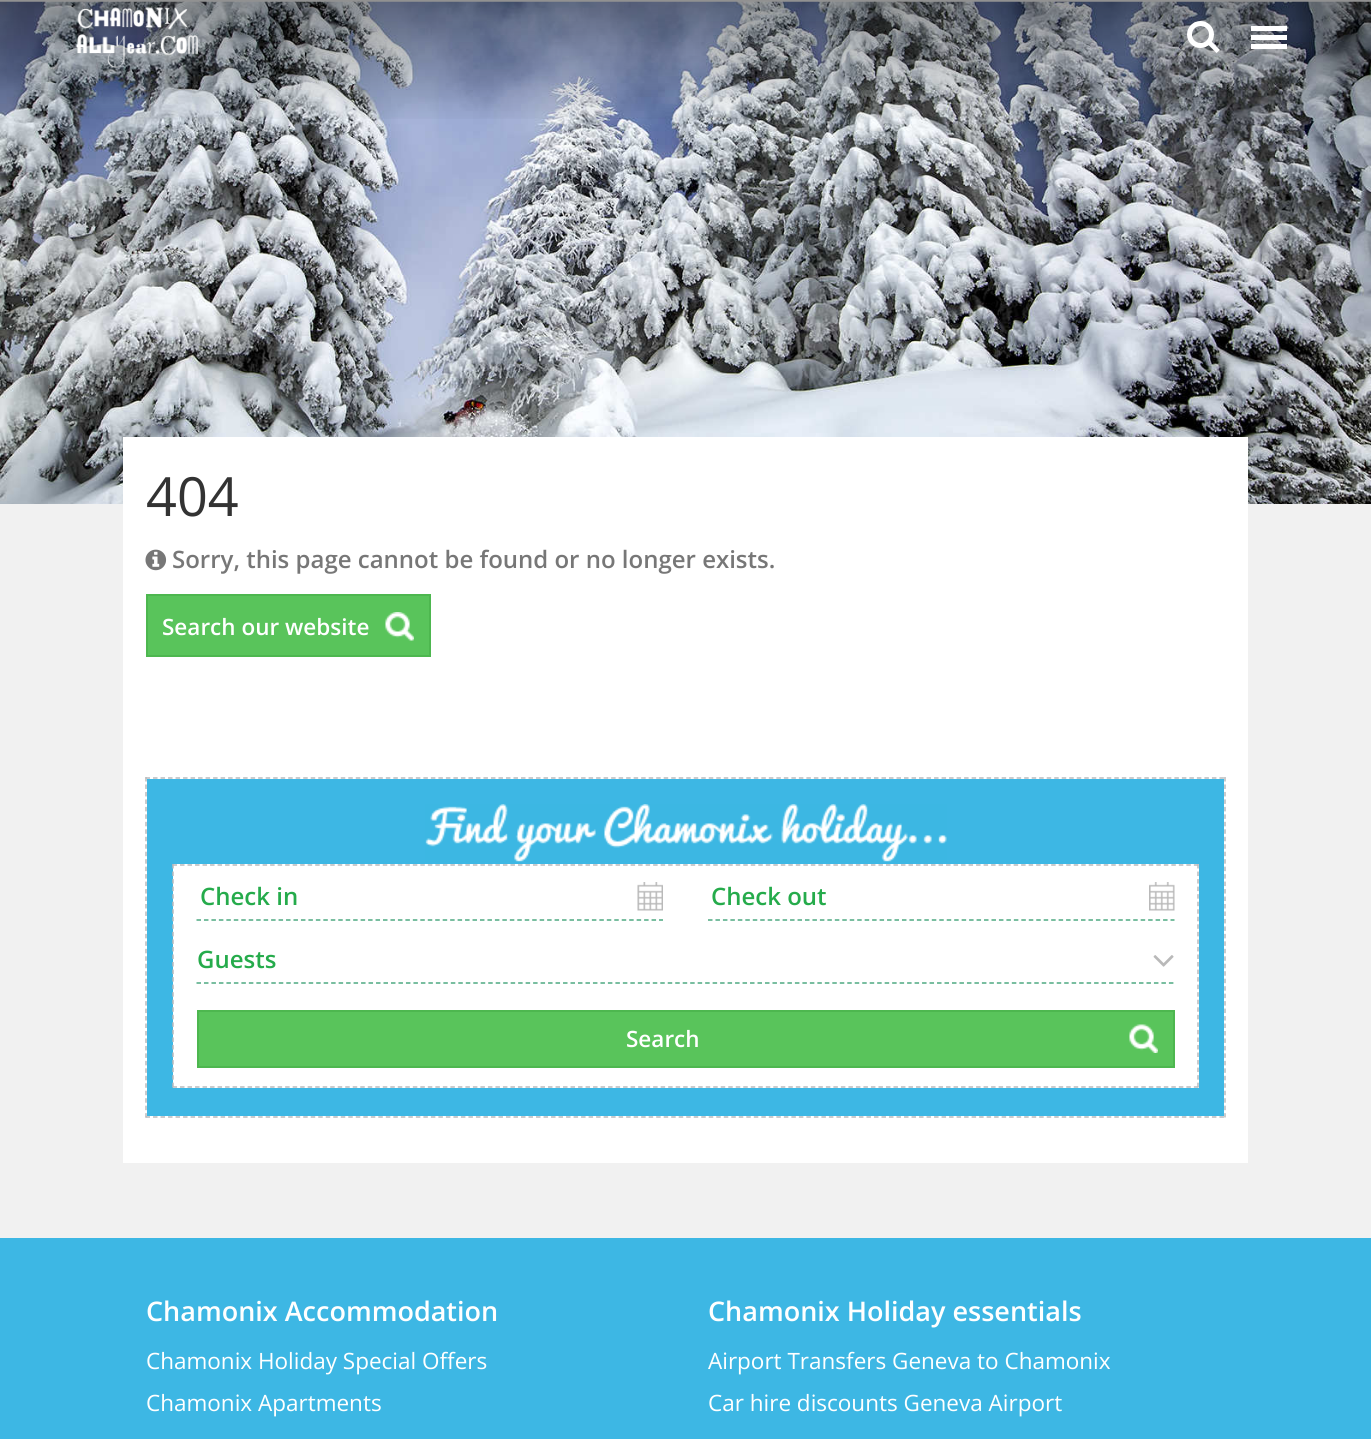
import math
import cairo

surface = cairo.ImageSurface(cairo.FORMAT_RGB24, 1371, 1439)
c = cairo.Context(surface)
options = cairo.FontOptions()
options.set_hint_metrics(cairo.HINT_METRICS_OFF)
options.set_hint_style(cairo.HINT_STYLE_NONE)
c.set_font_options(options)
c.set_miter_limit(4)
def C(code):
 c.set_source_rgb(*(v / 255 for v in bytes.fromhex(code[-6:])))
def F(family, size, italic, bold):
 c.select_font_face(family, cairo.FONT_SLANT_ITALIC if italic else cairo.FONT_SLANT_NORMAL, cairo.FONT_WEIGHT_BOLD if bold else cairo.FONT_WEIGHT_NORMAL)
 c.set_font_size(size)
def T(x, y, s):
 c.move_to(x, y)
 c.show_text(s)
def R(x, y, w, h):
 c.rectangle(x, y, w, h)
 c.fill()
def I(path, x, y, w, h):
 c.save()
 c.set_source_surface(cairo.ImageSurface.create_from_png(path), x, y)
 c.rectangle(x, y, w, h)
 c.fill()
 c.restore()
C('f1f1f1')
c.paint()
I('2.png',0,1,1371,503)
gradient = cairo.LinearGradient(686,0,686,126)
gradient.add_color_stop_rgba(0,0,0,0,.4)
gradient.add_color_stop_rgba(1,0,0,0,0)
gradient.add_color_stop_rgba(1,0,0,0,0)
c.set_source(gradient)
R(0,0,1371,119)
I('1.png',76,7,122,61)
c.arc(1200.5,34.5,11,0,2 * math.pi)
C('ffffff')
c.set_line_width(5)
c.stroke()
c.new_path()
c.move_to(1211.5,41.5)
c.line_to(1220,50)
c.line_to(1216.5,53)
c.line_to(1208,44.5)
c.close_path()
c.fill()
R(1251,35,36,5)
R(1251,26,36,5)
R(1251,44,36,5)
R(123,437,1125,726)
F('Open Sans',54,0,0)
C('333333')
T(146,516,'404')
I('3.png',145,549,22,22)
F('Open Sans SemiBold',24,0,0)
C('777777')
T(172,568,'Sorry, this page cannot be found or no longer exists.')
C('59c45b')
R(148,596,281,59)
I('4.png',385,612,29,29)
c.rectangle(147,595,283,61)
C('4db74f')
c.set_line_width(2)
c.stroke()
F('Open Sans SemiBold',22.5,0,0)
C('ffffff')
T(162,635,'Search our website')
c.new_path()
c.move_to(145.5,778)
c.line_to(1225.5,778)
C('b9babc')
c.set_line_width(1.5)
c.set_dash([4.5,3.01])
c.stroke()
c.new_path()
c.move_to(1225,777)
c.line_to(1225,1117.5)
c.set_dash([4.5,2.97])
c.stroke()
c.new_path()
c.move_to(145.5,1117)
c.line_to(1225.5,1117)
c.set_dash([4.5,3.01])
c.stroke()
c.new_path()
c.move_to(146,777)
c.line_to(146,1117.5)
c.set_dash([4.5,2.97])
c.stroke()
C('3db7e4')
R(147,779,1077,337)
I('5.png',425,804,522,58)
C('ffffff')
R(173,864,1026,224)
c.new_path()
c.move_to(172.5,865)
c.line_to(1198.5,865)
C('b9babc')
c.set_dash([4.5,3.01])
c.stroke()
c.new_path()
c.move_to(1198,864)
c.line_to(1198,1087.5)
c.set_dash([4.5,3.04])
c.stroke()
c.new_path()
c.move_to(172.5,1087)
c.line_to(1198.5,1087)
c.set_dash([4.5,3.01])
c.stroke()
c.new_path()
c.move_to(173,864)
c.line_to(173,1087.5)
c.set_dash([4.5,3.04])
c.stroke()
I('6.png',637,882,26,29)
c.new_path()
c.move_to(196.5,920)
c.line_to(663,920)
C('4da981')
c.set_dash([4.5,2.96])
c.stroke()
F('Open Sans SemiBold',24,0,0)
C('25ab4b')
T(200,905,'Check in')
I('7.png',1149,882,26,29)
c.new_path()
c.move_to(708,920)
c.line_to(1174.5,920)
C('4da981')
c.stroke()
C('25ab4b')
T(711,905,'Check out')
c.new_path()
c.move_to(196.5,983)
c.line_to(1174.5,983)
C('4da981')
c.set_dash([4.5,2.98])
c.stroke()
C('25ab4b')
T(197,968,'Guests')
I('8.png',1153,955,21,12)
C('59c45b')
R(199,1012,974,54)
I('9.png',1129,1024,29,29)
c.rectangle(198,1011,976,56)
C('4db74f')
c.set_line_width(2)
c.set_dash([])
c.stroke()
F('Open Sans SemiBold',22.5,0,0)
C('ffffff')
T(626,1047,'Search')
C('3db7e4')
R(0,1238,1371,201)
F('Open Sans SemiBold',27,0,0)
C('ffffff')
T(146,1321,'Chamonix Accommodation')
F('Open Sans',22.5,0,0)
T(146,1369,'Chamonix Holiday Special Offers')
T(146,1411,'Chamonix Apartments')
F('Open Sans SemiBold',27,0,0)
T(708,1321,'Chamonix Holiday essentials')
F('Open Sans',22.5,0,0)
T(708,1369,'Airport Transfers Geneva to Chamonix')
T(708,1411,'Car hire discounts Geneva Airport')
surface.write_to_png('o.png')
